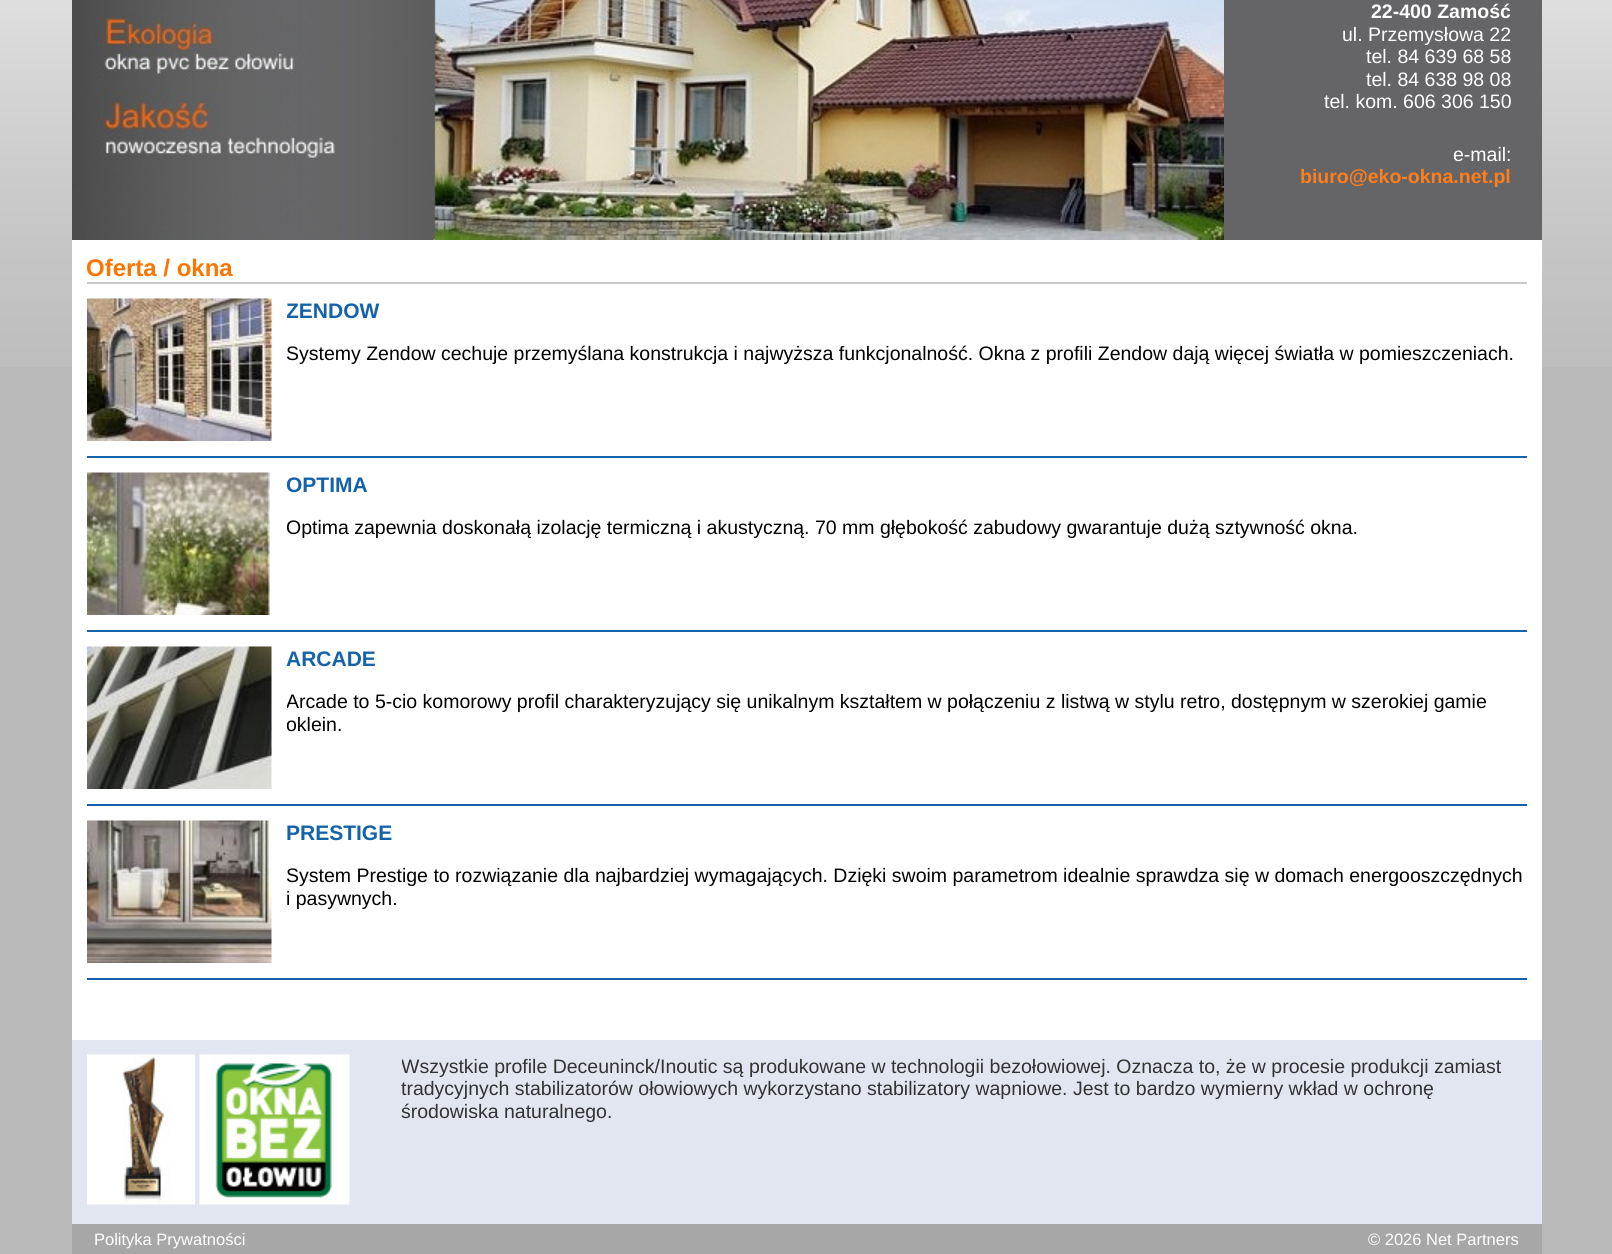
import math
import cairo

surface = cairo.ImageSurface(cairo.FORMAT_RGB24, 1612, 1254)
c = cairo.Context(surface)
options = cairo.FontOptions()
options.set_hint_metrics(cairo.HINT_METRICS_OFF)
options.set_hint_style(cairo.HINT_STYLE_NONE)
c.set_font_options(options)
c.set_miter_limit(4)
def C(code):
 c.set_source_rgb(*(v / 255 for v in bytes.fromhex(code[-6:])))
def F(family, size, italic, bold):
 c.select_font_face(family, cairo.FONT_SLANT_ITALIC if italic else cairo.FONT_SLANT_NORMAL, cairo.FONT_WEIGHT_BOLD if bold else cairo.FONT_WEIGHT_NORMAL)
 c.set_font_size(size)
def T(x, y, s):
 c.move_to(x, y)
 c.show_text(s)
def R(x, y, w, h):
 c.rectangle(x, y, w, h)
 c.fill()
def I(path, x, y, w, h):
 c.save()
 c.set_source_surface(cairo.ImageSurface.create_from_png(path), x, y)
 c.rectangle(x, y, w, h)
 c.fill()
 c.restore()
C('b9b9b9')
c.paint()
I('1.png',0,0,1612,367)
C('ffffff')
R(72,240,1470,800)
I('2.png',72,0,1152,240)
C('656567')
R(1224,0,318,240)
F('Liberation Sans',19.5,0,1)
C('ffffff')
T(1371,18,'22-400 Zamość')
F('Liberation Sans',19.5,0,0)
T(1342,41,'ul. Przemysłowa 22')
T(1366,63,'tel. 84 639 68 58')
T(1366,86,'tel. 84 638 98 08')
T(1324,108,'tel. kom. 606 306 150')
T(1453,161,'e-mail:')
F('Liberation Sans',19.5,0,1)
C('ff7e19')
T(1300,183,'biuro@eko-okna.net.pl')
C('cacaca')
R(87,282,1440,2)
F('Liberation Sans',24,0,1)
C('fb7501')
T(86,276,'Oferta / okna')
C('1463aa')
R(87,456,1440,2)
I('3.png',87,298,185,143)
c.save()
c.rectangle(287,299,1240,85)
c.clip()
F('Liberation Sans',21,0,1)
T(286,318,'ZENDOW')
c.restore()
F('Liberation Sans',19.5,0,0)
C('000000')
T(286,360,'Systemy Zendow cechuje przemyślana konstrukcja i najwyższa funkcjonalność. Okna z profili Zendow dają więcej światła w pomieszczeniach.')
C('1463aa')
R(87,630,1440,2)
I('4.png',87,472,183,143)
c.save()
c.rectangle(287,473,1240,85)
c.clip()
F('Liberation Sans',21,0,1)
T(286,492,'OPTIMA')
F('Liberation Sans',19.5,0,0)
C('000000')
T(286,534,'Optima zapewnia doskonałą izolację termiczną i akustyczną. 70 mm głębokość zabudowy gwarantuje dużą sztywność okna.')
c.restore()
R(87,804,1440,2)
I('5.png',87,646,185,143)
F('Liberation Sans',21,0,1)
T(286,666,'ARCADE')
c.save()
c.rectangle(287,647,1240,108)
c.clip()
F('Liberation Sans',19.5,0,0)
C('000000')
T(286,708,'Arcade to 5-cio komorowy profil charakteryzujący się unikalnym kształtem w połączeniu z listwą w stylu retro, dostępnym w szerokiej gamie')
T(286,731,'oklein.')
c.restore()
R(87,978,1440,2)
I('6.png',87,820,185,143)
T(286,840,'PRESTIGE')
F('Liberation Sans',19.5,0,0)
C('000000')
T(286,882,'System Prestige to rozwiązanie dla najbardziej wymagających. Dzięki swoim parametrom idealnie sprawdza się w domach energooszczędnych')
T(286,905,'i pasywnych.')
C('e2e6f1')
R(72,1040,1470,184)
I('7.png',87,1054,108,151)
I('8.png',199,1054,151,151)
c.save()
c.rectangle(402,1055,1125,67)
c.clip()
C('333333')
T(401,1073,'Wszystkie profile Deceuninck/Inoutic są produkowane w technologii bezołowiowej. Oznacza to, że w procesie produkcji zamiast')
c.restore()
C('333333')
T(401,1095,'tradycyjnych stabilizatorów ołowiowych wykorzystano stabilizatory wapniowe. Jest to bardzo wymierny wkład w ochronę')
T(401,1118,'środowiska naturalnego.')
C('a7a7a7')
R(72,1224,1470,30)
F('Liberation Sans',16.5,0,0)
C('ffffff')
T(94,1245,'Polityka Prywatności')
T(1368,1245,'© 2026 Net Partners')
surface.write_to_png('o.png')
